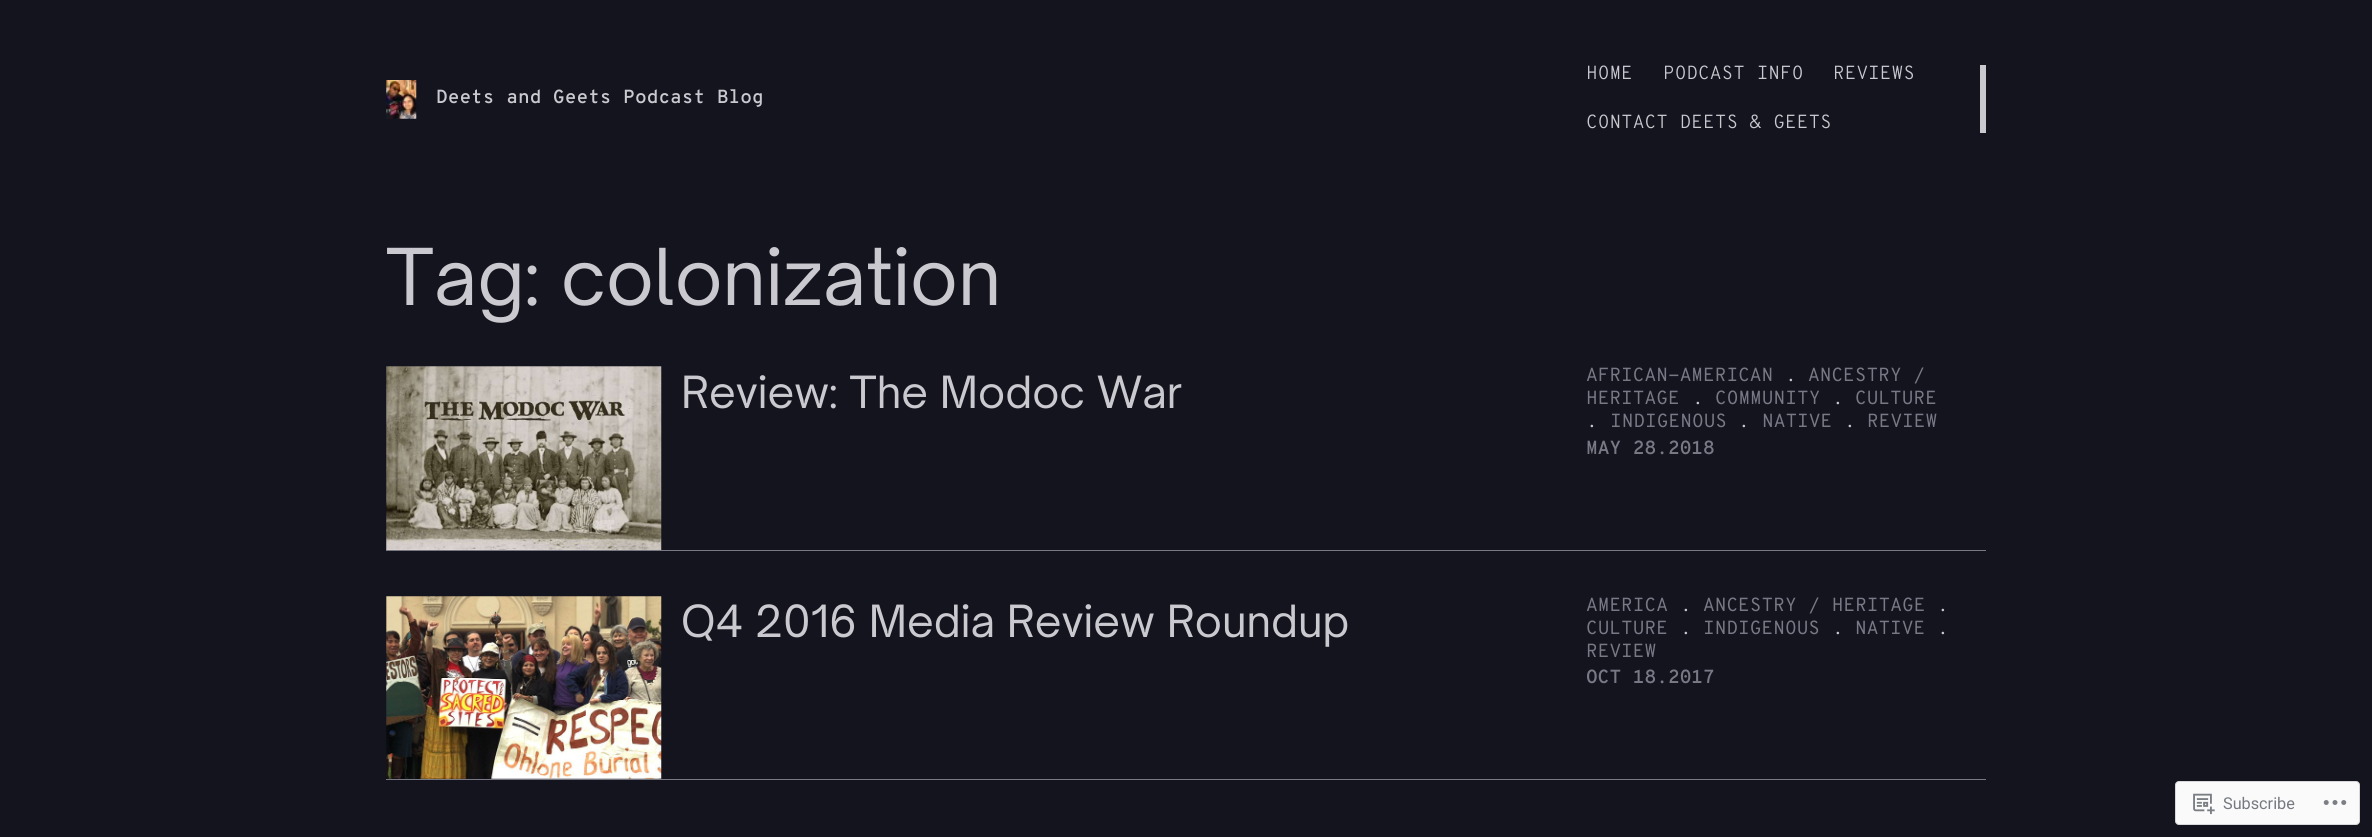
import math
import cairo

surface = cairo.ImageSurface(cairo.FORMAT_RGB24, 2372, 837)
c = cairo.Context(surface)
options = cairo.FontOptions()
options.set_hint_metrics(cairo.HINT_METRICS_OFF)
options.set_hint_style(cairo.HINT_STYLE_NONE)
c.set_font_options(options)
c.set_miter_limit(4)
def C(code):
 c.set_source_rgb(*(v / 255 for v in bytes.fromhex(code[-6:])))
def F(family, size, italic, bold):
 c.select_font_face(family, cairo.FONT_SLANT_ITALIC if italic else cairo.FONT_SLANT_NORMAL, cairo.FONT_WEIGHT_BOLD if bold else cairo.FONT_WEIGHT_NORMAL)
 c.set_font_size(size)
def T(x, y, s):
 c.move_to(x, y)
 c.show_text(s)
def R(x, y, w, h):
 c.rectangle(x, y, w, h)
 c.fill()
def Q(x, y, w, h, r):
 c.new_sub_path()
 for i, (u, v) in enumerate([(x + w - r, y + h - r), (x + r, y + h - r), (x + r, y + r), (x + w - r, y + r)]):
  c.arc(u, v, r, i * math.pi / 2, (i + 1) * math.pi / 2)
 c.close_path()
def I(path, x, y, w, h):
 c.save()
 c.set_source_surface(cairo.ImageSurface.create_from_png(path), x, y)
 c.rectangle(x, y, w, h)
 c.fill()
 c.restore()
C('14141f')
c.paint()
I('1.png',386,80,31,39)
F('Overpass Mono SemiBold',19,0,0)
C('cac9cf')
T(436,103,'Deets and Geets Podcast Blog')
R(1980,65,6,68)
F('Overpass Mono Light',19,0,0)
T(1586,79,'HOME')
T(1663,79,'PODCAST INFO')
T(1833,79,'REVIEWS')
T(1586,128,'CONTACT DEETS & GEETS')
F('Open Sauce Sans',75,0,0)
T(386,305,'Tag: colonization')
C('797986')
R(386,550,1600,1)
I('2.png',386,366,276,184)
F('Open Sauce Sans',42.5,0,0)
C('cac9cf')
T(681,408,'Review: The Modoc War')
F('Overpass Mono',19,0,0)
C('797986')
T(1586,381,'AFRICAN-AMERICAN')
C('cac9cf')
T(1785,381,'.')
C('797986')
T(1808,381,'ANCESTRY /')
T(1586,404,'HERITAGE')
C('cac9cf')
T(1692,404,'.')
C('797986')
T(1715,404,'COMMUNITY')
C('cac9cf')
T(1832,404,'.')
C('797986')
T(1855,404,'CULTURE')
C('cac9cf')
T(1586,427,'.')
C('797986')
T(1610,427,'INDIGENOUS')
C('cac9cf')
T(1738,427,'.')
C('797986')
T(1762,427,'NATIVE')
C('cac9cf')
T(1844,427,'.')
C('797986')
T(1867,427,'REVIEW')
F('Overpass Mono SemiBold',19,0,0)
T(1586,454,'MAY 28.2018')
R(386,779,1600,1)
I('3.png',386,596,276,183)
F('Open Sauce Sans',42.5,0,0)
C('cac9cf')
T(681,637,'Q4 2016 Media Review Roundup')
F('Overpass Mono',19,0,0)
C('797986')
T(1586,611,'AMERICA')
C('cac9cf')
T(1680,611,'.')
C('797986')
T(1703,611,'ANCESTRY / HERITAGE')
C('cac9cf')
T(1937,611,'.')
C('797986')
T(1586,634,'CULTURE')
C('cac9cf')
T(1680,634,'.')
C('797986')
T(1703,634,'INDIGENOUS')
C('cac9cf')
T(1832,634,'.')
C('797986')
T(1855,634,'NATIVE')
C('cac9cf')
T(1937,634,'.')
C('797986')
T(1586,657,'REVIEW')
F('Overpass Mono SemiBold',19,0,0)
T(1586,683,'OCT 18.2017')
C('fafafb')
Q(2175.5,781.5,184,43,3.5)
c.fill_preserve()
C('d8d8da')
c.set_line_width(1)
c.stroke()
I('4.png',2193,793,22,22)
F('Roboto',16.25,0,0)
C('767a80')
T(2223,809,'Subscribe')
I('5.png',2323,800,24,5)
surface.write_to_png('o.png')
